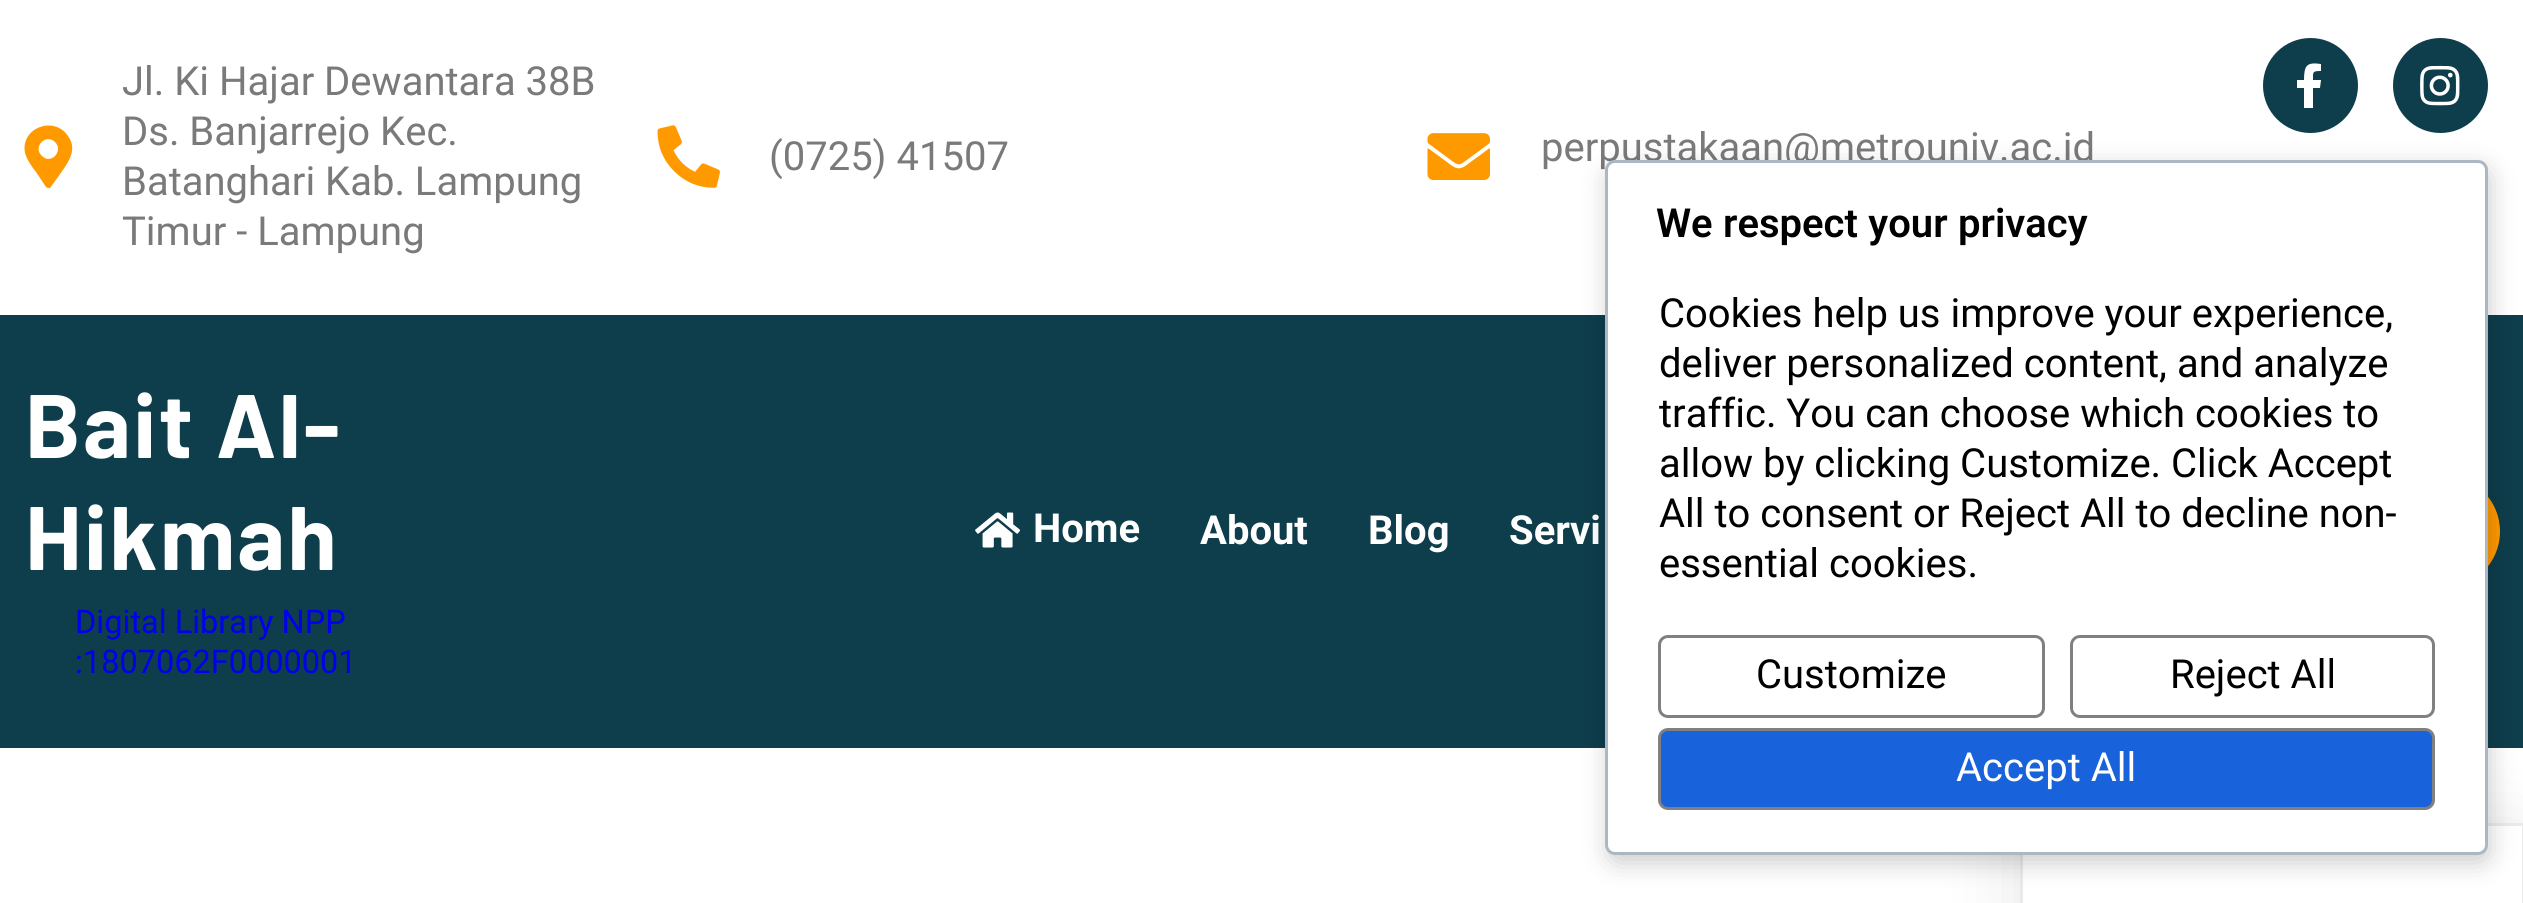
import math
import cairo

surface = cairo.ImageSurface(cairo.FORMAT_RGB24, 2523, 903)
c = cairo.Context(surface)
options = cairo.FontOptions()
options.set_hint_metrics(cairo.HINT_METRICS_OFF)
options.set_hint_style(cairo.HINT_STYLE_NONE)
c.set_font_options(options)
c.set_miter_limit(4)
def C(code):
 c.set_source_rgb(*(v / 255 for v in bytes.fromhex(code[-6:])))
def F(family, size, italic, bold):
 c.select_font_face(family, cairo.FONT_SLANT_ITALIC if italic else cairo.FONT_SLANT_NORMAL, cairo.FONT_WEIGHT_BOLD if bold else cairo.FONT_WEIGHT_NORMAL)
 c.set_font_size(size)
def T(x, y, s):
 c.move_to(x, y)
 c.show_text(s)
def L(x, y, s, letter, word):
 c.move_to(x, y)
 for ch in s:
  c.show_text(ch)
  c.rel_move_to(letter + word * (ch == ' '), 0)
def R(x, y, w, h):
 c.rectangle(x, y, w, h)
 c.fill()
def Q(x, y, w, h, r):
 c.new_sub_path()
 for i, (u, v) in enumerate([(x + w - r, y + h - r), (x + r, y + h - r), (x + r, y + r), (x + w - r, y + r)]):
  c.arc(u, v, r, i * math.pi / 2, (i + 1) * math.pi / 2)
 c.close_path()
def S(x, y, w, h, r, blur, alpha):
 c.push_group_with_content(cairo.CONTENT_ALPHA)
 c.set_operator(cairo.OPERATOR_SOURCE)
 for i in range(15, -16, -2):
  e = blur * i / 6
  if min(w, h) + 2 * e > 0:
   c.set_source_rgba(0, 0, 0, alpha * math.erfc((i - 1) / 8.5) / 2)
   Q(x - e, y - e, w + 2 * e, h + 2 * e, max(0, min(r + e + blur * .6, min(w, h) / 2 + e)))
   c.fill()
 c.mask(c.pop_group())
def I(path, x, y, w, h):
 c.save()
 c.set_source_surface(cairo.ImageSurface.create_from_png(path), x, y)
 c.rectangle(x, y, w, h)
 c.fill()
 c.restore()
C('ffffff')
c.paint()
C('ff9900')
c.new_path()
c.move_to(46,187)
c.line_to(36,172)
c.curve_to(32,167,27,160,25,153)
c.curve_to(20,128,54,115,68,136)
c.curve_to(79,151,66,165,58,177)
c.line_to(50,188)
c.curve_to(49,188,47,188,46,187)
c.close_path()
c.move_to(42,156)
c.curve_to(51,165,64,151,55,142)
c.curve_to(46,133,32,147,42,156)
c.close_path()
c.fill()
F('Roboto',40,0,0)
C('7a7a7a')
T(122,95,'Jl. Ki Hajar Dewantara 38B')
T(122,145,'Ds. Banjarrejo Kec.')
T(122,195,'Batanghari Kab. Lampung')
T(122,245,'Timur - Lampung')
I('1.png',657,125,63,63)
T(769,170,'(0725) 41507')
I('2.png',1427,133,63,47)
T(1541,161,'perpustakaan@metrouniv.ac.id')
C('0e3d4b')
c.new_path()
c.arc(2310.5,85.5,47.5,0,2 * math.pi)
c.fill()
C('ffffff')
c.new_path()
c.move_to(2320,88)
c.line_to(2313,88)
c.line_to(2313,108)
c.line_to(2304,108)
c.line_to(2304,88)
c.line_to(2297,88)
c.line_to(2297,80)
c.line_to(2304,80)
c.curve_to(2304,65,2307,62,2321,64)
c.line_to(2321,71)
c.curve_to(2312,71,2313,72,2313,80)
c.line_to(2321,80)
c.close_path()
c.fill()
C('0e3d4b')
c.arc(2440.5,85.5,47.5,0,2 * math.pi)
c.fill()
I('3.png',2420,65,40,41)
c.save()
c.set_fill_rule(cairo.FILL_RULE_EVEN_ODD)
c.new_path()
c.move_to(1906,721)
c.line_to(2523,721)
c.line_to(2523,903)
c.line_to(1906,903)
c.close_path()
c.move_to(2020,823)
c.line_to(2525,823)
c.line_to(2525,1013)
c.line_to(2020,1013)
c.close_path()
c.clip()
C('000000')
S(2020,835,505,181,0,37.5,.1)
c.restore()
R(0,315,2523,433)
F('Barlow',90,0,1)
C('ffffff')
L(25,458,'Bait Al-',2.5,0)
L(25,570,'Hikmah',2.5,0)
F('Roboto',32.5,0,0)
C('0000ee')
T(75,633,'Digital Library NPP')
T(75,673,':1807062F0000001')
I('4.png',975,512,46,36)
F('Roboto',40,0,1)
C('ffffff')
T(1033,542,'Home')
T(1200,544,'About')
T(1368,544,'Blog')
T(1509,544,'Servi')
C('ff9900')
Q(2110,475,390,113,56.5)
c.fill()
c.rectangle(2021.5,824.5,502,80)
C('eaeaea')
c.set_line_width(3)
c.stroke()
C('000000')
S(1608,168,882,695,10,12.5,.2)
C('ffffff')
Q(1606.5,161.5,880,692,8.5)
c.fill_preserve()
C('abb8c3')
c.stroke()
F('Roboto SemiBold',40,0,0)
C('000000')
L(1656,237,'We respect your privacy',0,.5)
F('Roboto',40,0,0)
T(1659,327,'Cookies help us improve your experience,')
T(1659,377,'deliver personalized content, and analyze')
T(1659,427,'traffic. You can choose which cookies to')
T(1659,477,'allow by clicking Customize. Click Accept')
T(1659,527,'All to consent or Reject All to decline non-')
T(1659,577,'essential cookies.')
Q(1659.5,636.5,384,80,8.5)
C('808080')
c.stroke()
C('000000')
T(1756,688,'Customize')
Q(2071.5,636.5,362,80,8.5)
C('808080')
c.stroke()
C('000000')
T(2170,688,'Reject All')
C('1863dc')
Q(1659.5,729.5,774,79,8.5)
c.fill_preserve()
C('808080')
c.stroke()
C('ffffff')
T(1956,781,'Accept All')
surface.write_to_png('o.png')
